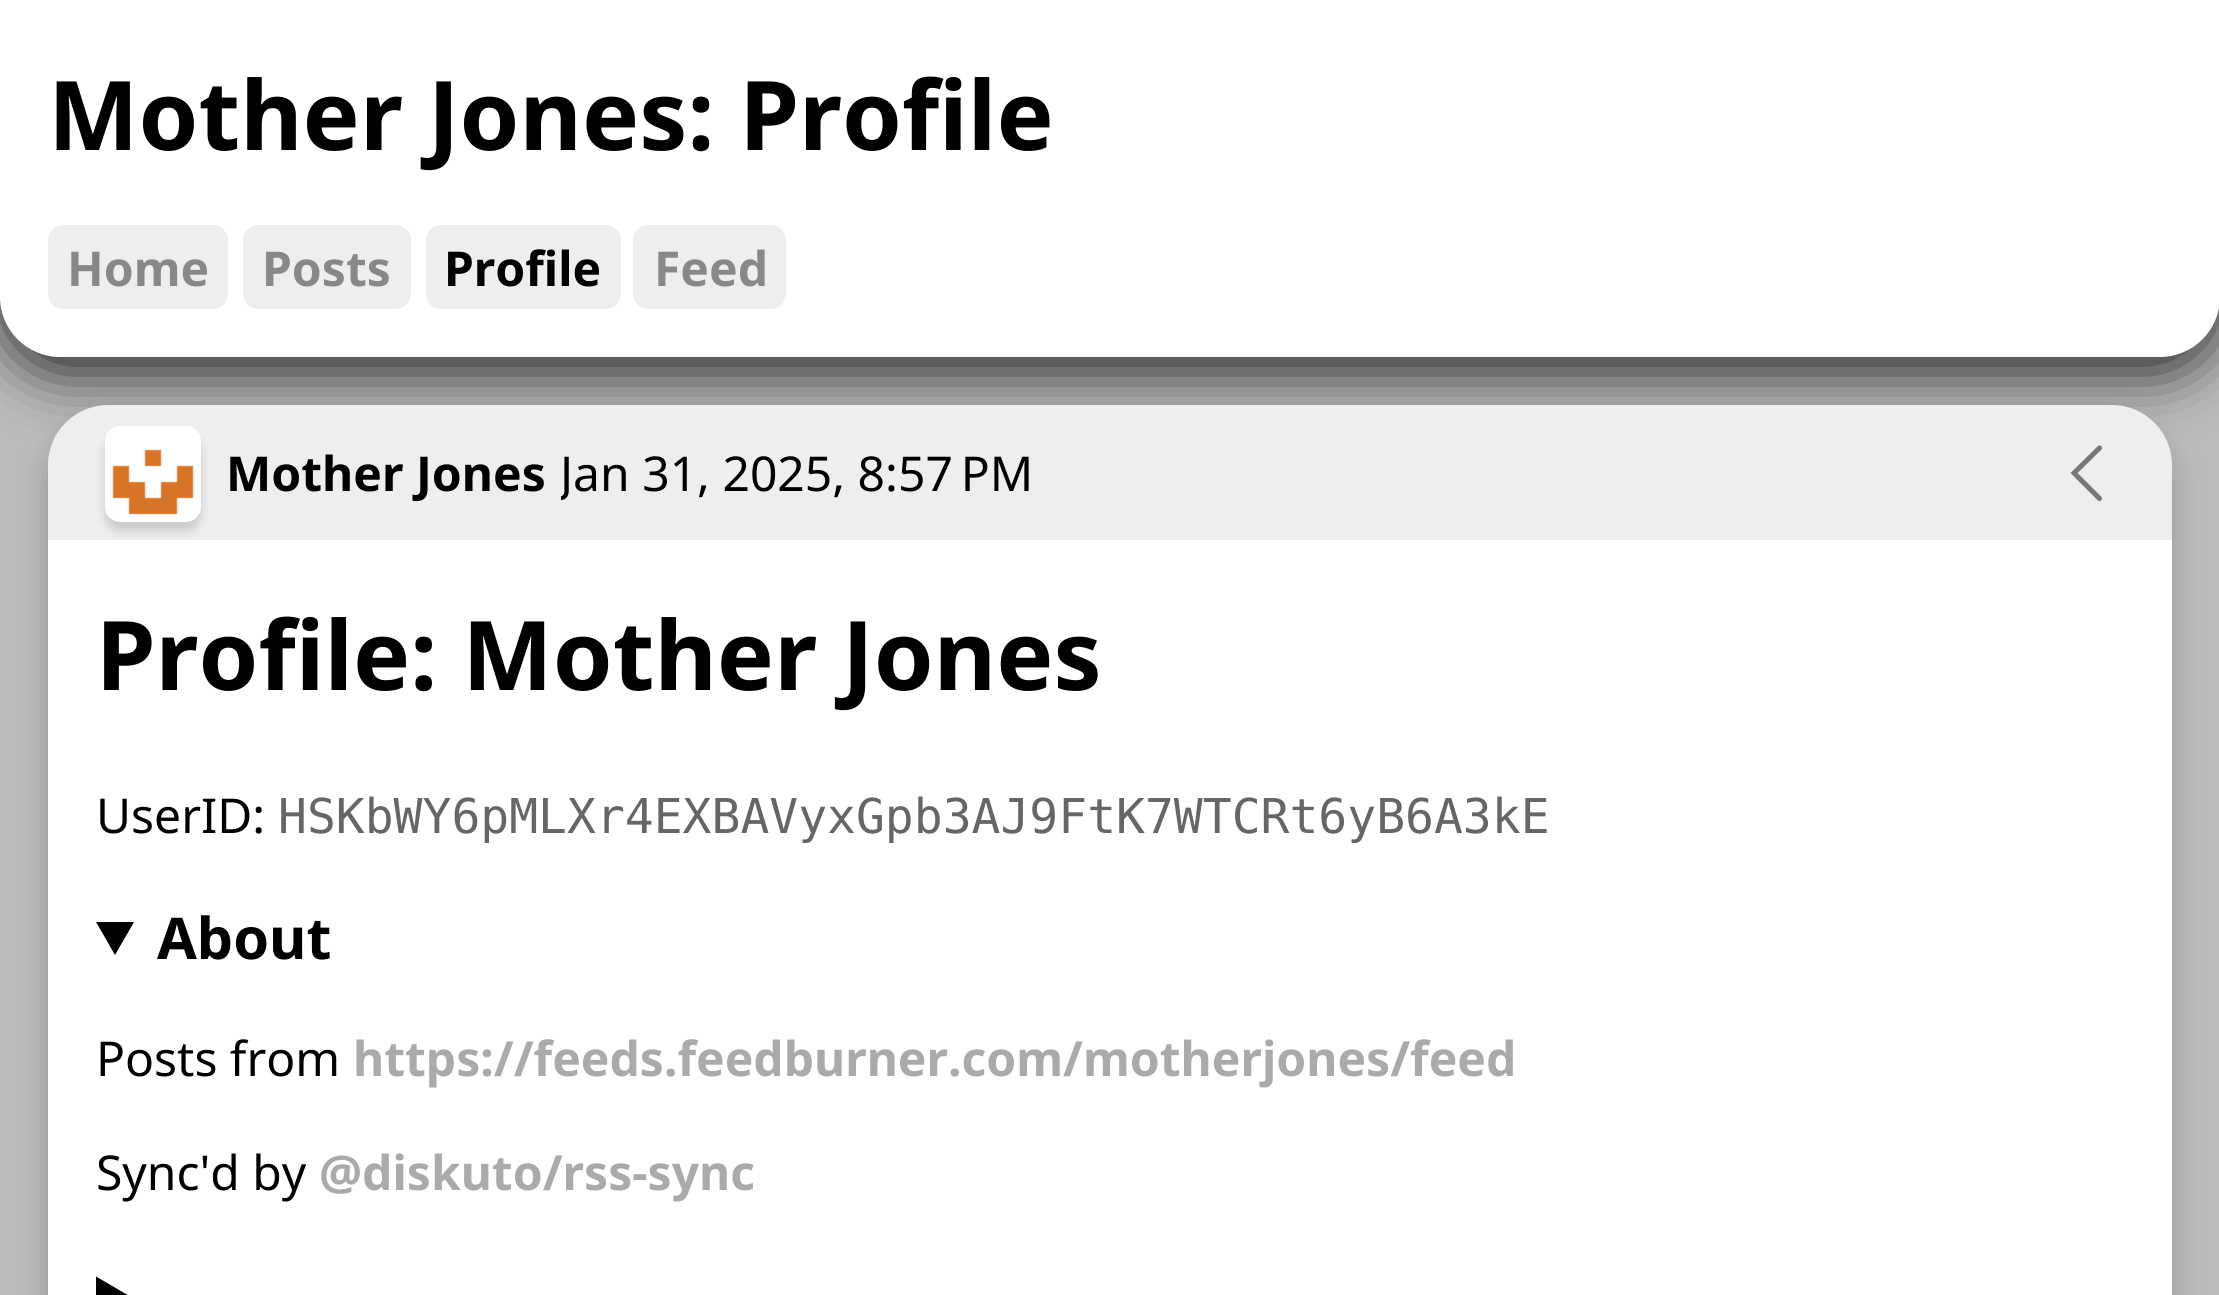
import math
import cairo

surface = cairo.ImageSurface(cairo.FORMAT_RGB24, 2219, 1295)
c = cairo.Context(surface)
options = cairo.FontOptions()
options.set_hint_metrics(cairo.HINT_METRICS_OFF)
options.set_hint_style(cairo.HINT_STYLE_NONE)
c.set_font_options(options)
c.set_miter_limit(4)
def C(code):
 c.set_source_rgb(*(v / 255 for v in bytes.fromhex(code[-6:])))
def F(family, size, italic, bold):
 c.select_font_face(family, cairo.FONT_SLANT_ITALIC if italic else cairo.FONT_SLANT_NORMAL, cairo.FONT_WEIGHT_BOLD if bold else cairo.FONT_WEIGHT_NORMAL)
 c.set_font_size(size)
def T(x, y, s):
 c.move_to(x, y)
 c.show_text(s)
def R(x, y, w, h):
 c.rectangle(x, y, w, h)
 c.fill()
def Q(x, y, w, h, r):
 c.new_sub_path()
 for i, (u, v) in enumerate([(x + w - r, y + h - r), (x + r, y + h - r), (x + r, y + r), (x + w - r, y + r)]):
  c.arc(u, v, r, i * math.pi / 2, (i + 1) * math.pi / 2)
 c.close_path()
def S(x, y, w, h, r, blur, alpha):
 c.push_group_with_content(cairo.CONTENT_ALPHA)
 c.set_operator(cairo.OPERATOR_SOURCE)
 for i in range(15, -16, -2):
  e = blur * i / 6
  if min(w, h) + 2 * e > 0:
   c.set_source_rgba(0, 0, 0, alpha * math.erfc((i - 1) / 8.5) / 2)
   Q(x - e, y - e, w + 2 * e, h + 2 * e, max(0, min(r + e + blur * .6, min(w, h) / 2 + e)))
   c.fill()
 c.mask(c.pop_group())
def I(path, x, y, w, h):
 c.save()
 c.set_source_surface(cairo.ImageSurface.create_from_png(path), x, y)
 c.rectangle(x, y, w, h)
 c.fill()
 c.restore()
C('bbbbbb')
c.paint()
C('000000')
S(0,15,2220,357,60,30,.8)
C('ffffff')
c.new_path()
c.move_to(0,0)
c.line_to(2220,0)
c.line_to(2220,297)
c.curve_to(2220,330,2193,357,2160,357)
c.line_to(60,357)
c.curve_to(27,357,0,330,0,297)
c.close_path()
c.fill()
F('Noto Sans',96,0,1)
C('000000')
T(48,150,'Mother Jones: Profile')
C('eeeeee')
Q(48,225,180,84,15)
c.fill()
F('Noto Sans',48,0,1)
C('888888')
T(67,286,'Home')
C('eeeeee')
Q(243,225,168,84,15)
c.fill()
C('888888')
T(262,286,'Posts')
C('eeeeee')
Q(426,225,195,84,15)
c.fill()
C('000000')
T(444,286,'Profile')
C('eeeeee')
Q(633,225,153,84,15)
c.fill()
C('888888')
T(654,286,'Feed')
C('000000')
S(48,420,2124,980,60,15,.2)
C('eeeeee')
c.new_path()
c.move_to(108,405)
c.line_to(2112,405)
c.curve_to(2145,405,2172,432,2172,465)
c.line_to(2172,540)
c.line_to(48,540)
c.line_to(48,465)
c.curve_to(48,432,75,405,108,405)
c.close_path()
c.fill()
C('000000')
S(105,435,96,96,15,4.5,.15)
I('1.png',105,426,96,96)
C('000000')
T(226,491,'Mother Jones')
c.save()
c.rectangle(561,0,471,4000)
c.clip()
F('Noto Sans',48,0,0)
T(560,491,'Jan 31, 2025, 8:57 PM')
c.restore()
c.new_path()
c.move_to(2099.5,498.5)
c.line_to(2074,473)
c.line_to(2099.5,448)
C('777777')
c.set_line_width(5)
c.set_line_cap(cairo.LINE_CAP_ROUND)
c.stroke()
C('ffffff')
R(48,540,2124,755)
F('Noto Sans',96,0,1)
C('000000')
T(96,690,'Profile: Mother Jones')
F('Noto Sans',48,0,0)
T(96,833,'UserID:')
F('DejaVu Sans Mono',48,0,0)
C('666666')
T(278,833,'HSKbWY6pMLXr4EXBAVyxGpb3AJ9FtK7WTCRt6yB6A3kE')
C('000000')
c.new_path()
c.move_to(96,922)
c.line_to(134,922)
c.line_to(115,955)
c.close_path()
c.fill()
F('Noto Sans',57.5,0,1)
T(157,959,'About')
F('Noto Sans',48,0,0)
T(96,1076,'Posts from')
F('Noto Sans',48,0,1)
C('aaaaaa')
T(353,1076,'https://feeds.feedburner.com/motherjones/feed')
F('Noto Sans',48,0,0)
C('000000')
T(96,1190,'Sync\'d by')
F('Noto Sans',48,0,1)
C('aaaaaa')
T(319,1190,'@diskuto/rss-sync')
C('000000')
c.new_path()
c.move_to(96,1276.5)
c.line_to(128.5,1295.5)
c.line_to(96,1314.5)
c.close_path()
c.fill()
surface.write_to_png('o.png')
